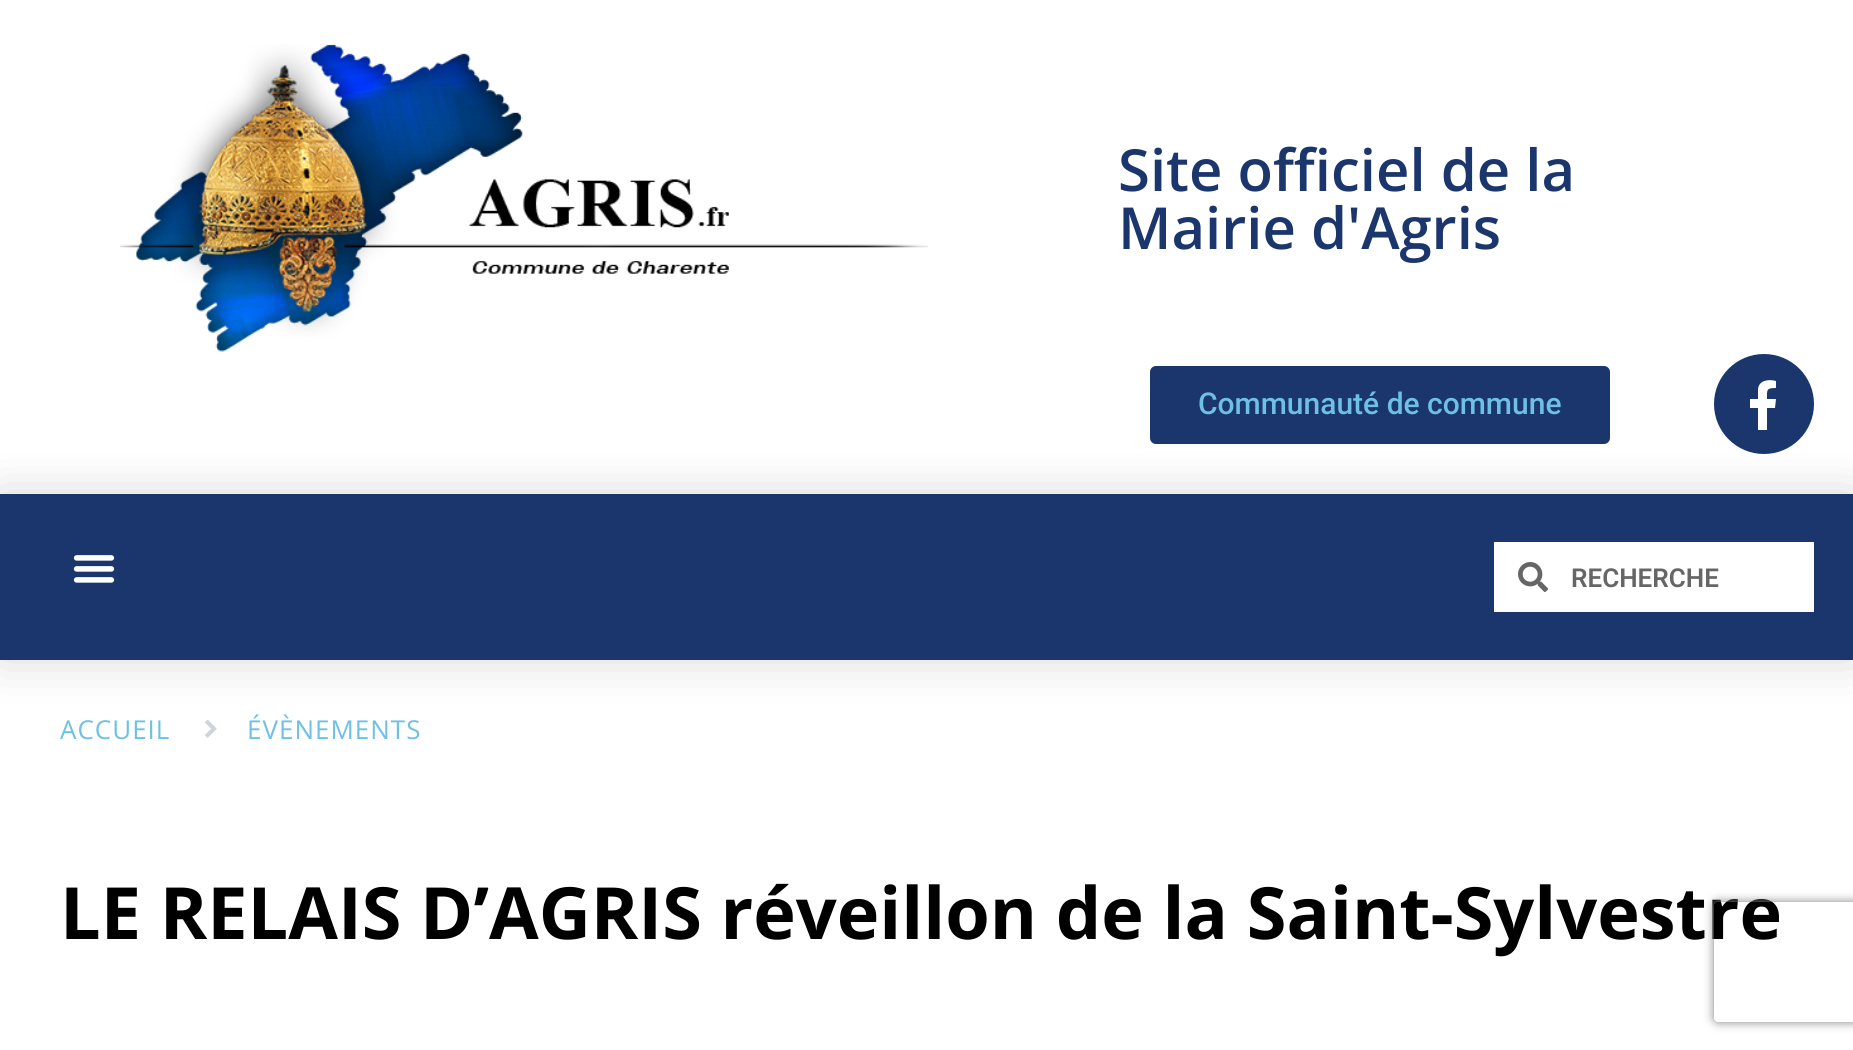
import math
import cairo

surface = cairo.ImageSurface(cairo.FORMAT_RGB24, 1853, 1050)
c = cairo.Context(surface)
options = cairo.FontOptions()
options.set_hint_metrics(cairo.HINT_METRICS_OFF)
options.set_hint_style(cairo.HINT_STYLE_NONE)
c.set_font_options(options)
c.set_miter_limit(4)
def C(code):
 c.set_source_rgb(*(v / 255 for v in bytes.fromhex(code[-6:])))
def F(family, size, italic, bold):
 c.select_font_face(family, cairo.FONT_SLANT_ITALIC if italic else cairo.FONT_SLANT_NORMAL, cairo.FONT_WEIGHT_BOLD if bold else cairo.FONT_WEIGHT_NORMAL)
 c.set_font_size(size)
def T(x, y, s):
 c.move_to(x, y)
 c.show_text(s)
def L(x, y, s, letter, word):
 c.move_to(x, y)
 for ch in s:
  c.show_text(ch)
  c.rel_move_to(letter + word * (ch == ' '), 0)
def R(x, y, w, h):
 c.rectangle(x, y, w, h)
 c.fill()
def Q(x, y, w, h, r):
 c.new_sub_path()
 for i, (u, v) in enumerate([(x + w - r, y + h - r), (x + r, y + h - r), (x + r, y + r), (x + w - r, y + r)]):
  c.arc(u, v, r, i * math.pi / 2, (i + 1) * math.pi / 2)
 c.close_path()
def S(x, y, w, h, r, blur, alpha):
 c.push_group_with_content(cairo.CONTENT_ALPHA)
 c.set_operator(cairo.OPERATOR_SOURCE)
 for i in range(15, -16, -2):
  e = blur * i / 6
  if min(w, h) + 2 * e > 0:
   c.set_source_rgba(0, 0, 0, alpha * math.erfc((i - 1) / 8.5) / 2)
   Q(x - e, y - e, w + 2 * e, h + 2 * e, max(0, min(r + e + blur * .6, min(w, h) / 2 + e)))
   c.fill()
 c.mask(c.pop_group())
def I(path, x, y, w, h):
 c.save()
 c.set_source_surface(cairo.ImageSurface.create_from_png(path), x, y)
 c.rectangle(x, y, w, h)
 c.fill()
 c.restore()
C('ffffff')
c.paint()
I('1.png',120,44,808,308)
F('Open Sans SemiBold',58,0,0)
C('1b366c')
T(1118,191,'Site officiel de la')
T(1118,249,'Mairie d\'Agris')
Q(1150,366,460,78,6)
c.fill()
F('Roboto Medium',30,0,0)
C('6ec1e4')
T(1198,414,'Communauté de commune')
C('1b366c')
c.new_path()
c.arc(1764,404,48,0,2 * math.pi)
c.fill_preserve()
c.set_line_width(4)
c.stroke()
C('ffffff')
c.new_path()
c.move_to(1775,408)
c.line_to(1776,399)
c.line_to(1767,399)
c.curve_to(1767,390,1766,388,1776,388)
c.line_to(1776,381)
c.curve_to(1769,379,1759,380,1758,389)
c.line_to(1758,399)
c.line_to(1750,399)
c.line_to(1750,408)
c.line_to(1758,408)
c.line_to(1758,430)
c.line_to(1767,430)
c.line_to(1767,408)
c.close_path()
c.fill()
I('4.png',205,719,12,19)
C('000000')
S(0,494,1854,166,0,24,.15)
C('1b366c')
R(0,494,1853,166)
I('2.png',73,555,42,28)
C('ffffff')
R(1494,542,320,70)
I('3.png',1518,562,30,30)
F('Roboto SemiBold',26,0,0)
C('666666')
T(1571,587,'RECHERCHE')
F('Open Sans',26,0,0)
C('6ec1e4')
L(60,739,'ACCUEIL',1,0)
L(247,739,'ÉVÈNEMENTS',1,0)
F('Open Sans',72,0,1)
C('000000')
T(60,939,'LE RELAIS D’AGRIS réveillon de la Saint-Sylvestre')
c.save()
c.set_fill_rule(cairo.FILL_RULE_EVEN_ODD)
c.new_path()
c.move_to(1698,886)
c.line_to(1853,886)
c.line_to(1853,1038)
c.line_to(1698,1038)
c.close_path()
c.move_to(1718,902)
c.line_to(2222,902)
c.curve_to(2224,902,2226,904,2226,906)
c.line_to(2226,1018)
c.curve_to(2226,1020,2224,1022,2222,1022)
c.line_to(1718,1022)
c.curve_to(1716,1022,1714,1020,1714,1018)
c.line_to(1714,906)
c.curve_to(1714,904,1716,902,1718,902)
c.close_path()
c.clip()
C('808080')
S(1714,902,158,120,4,5,1)
c.restore()
surface.write_to_png('o.png')
